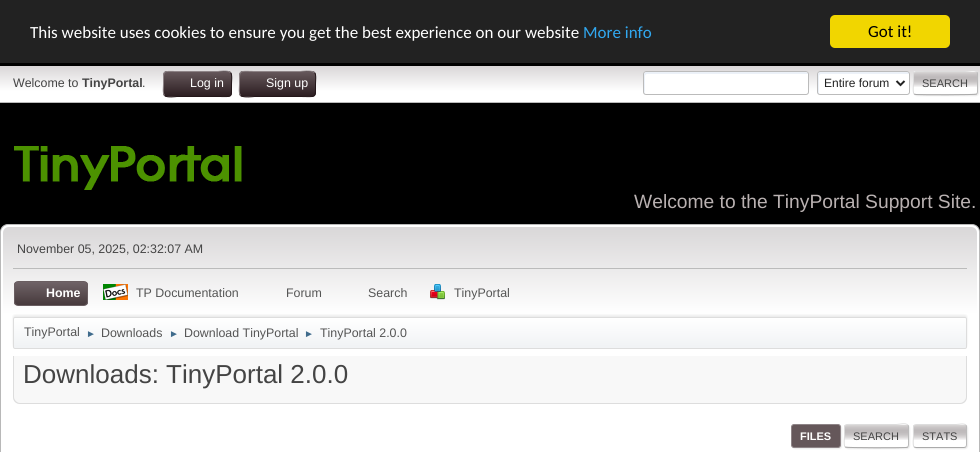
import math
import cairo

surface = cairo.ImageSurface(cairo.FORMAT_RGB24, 980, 452)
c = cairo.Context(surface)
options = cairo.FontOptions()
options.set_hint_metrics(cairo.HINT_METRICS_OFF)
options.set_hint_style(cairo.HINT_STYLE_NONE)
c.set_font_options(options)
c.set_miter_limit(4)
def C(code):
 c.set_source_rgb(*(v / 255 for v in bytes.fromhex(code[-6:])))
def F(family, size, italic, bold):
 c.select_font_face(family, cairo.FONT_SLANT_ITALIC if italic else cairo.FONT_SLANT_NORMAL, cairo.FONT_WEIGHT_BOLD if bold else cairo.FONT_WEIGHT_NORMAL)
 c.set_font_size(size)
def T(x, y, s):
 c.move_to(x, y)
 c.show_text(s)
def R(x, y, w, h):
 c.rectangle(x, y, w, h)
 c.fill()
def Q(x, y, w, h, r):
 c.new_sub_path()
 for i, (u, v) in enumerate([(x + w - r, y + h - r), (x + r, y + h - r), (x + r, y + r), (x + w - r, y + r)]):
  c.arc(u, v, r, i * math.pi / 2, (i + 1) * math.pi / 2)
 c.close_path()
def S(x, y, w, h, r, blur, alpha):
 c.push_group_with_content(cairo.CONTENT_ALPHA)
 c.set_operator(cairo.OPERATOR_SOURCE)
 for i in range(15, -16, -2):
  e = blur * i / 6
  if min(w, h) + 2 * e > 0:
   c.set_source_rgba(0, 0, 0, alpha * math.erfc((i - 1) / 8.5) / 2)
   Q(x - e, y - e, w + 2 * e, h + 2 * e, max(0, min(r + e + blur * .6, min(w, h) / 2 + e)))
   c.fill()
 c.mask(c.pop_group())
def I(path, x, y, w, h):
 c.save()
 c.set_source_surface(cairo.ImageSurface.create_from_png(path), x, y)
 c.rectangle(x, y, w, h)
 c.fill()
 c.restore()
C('000000')
c.paint()
C('222222')
R(0,0,980,63)
F('Carlito',17,0,0)
C('ffffff')
T(30,38,'This website uses cookies to ensure you get the best experience on our website')
C('31a8f0')
T(583,38,'More info')
C('f1d600')
Q(830,15,120,33,5)
c.fill()
C('000000')
T(868,37,'Got it!')
gradient = cairo.LinearGradient(490,66,490,102)
gradient.add_color_stop_rgba(0,0.851,0.839,0.843,1)
gradient.add_color_stop_rgba(.7,1,1,1,1)
c.set_source(gradient)
R(0,66,980,36)
C('bbbbbb')
R(0,102,980,1)
F('Liberation Sans',12.4,0,0)
C('444444')
T(13,87,'Welcome to')
F('Liberation Sans',12.4,0,1)
T(82,87,'TinyPortal')
F('Liberation Sans',12.4,0,0)
T(142,87,'.')
c.save()
Q(163,71,69,26,4)
c.clip()
gradient = cairo.LinearGradient(198,48,198,72)
gradient.add_color_stop_rgba(0,0.396,0.341,0.353,1)
gradient.add_color_stop_rgba(1,0.173,0.118,0.133,1)
c.set_source(gradient)
R(163,71,69,1)
gradient = cairo.LinearGradient(198,72,198,96)
gradient.add_color_stop_rgba(0,0.396,0.341,0.353,1)
gradient.add_color_stop_rgba(1,0.173,0.118,0.133,1)
c.set_source(gradient)
R(163,72,69,24)
gradient = cairo.LinearGradient(198,96,198,120)
gradient.add_color_stop_rgba(0,0.396,0.341,0.353,1)
gradient.add_color_stop_rgba(1,0.173,0.118,0.133,1)
c.set_source(gradient)
R(163,96,69,1)
c.restore()
c.new_path()
c.move_to(230.5,72.5)
c.curve_to(232.5,74.5,231.5,81.5,231.5,84)
c.curve_to(231.5,98.5,233,96.5,218,96.5)
c.line_to(177,96.5)
c.curve_to(176,96.5,167,98,164.5,95.5)
C('231619')
c.set_line_width(1)
c.stroke()
c.new_path()
c.move_to(164.5,95.5)
c.curve_to(162.5,93.5,163.5,86.5,163.5,84)
c.curve_to(163.5,69.5,162,71.5,177,71.5)
c.line_to(218,71.5)
c.curve_to(219,71.5,228,70,230.5,72.5)
C('8e8487')
c.stroke()
C('ffffff')
T(190,87,'Log in')
c.save()
Q(239,71,77,26,4)
c.clip()
gradient = cairo.LinearGradient(278,48,278,72)
gradient.add_color_stop_rgba(0,0.396,0.341,0.353,1)
gradient.add_color_stop_rgba(1,0.173,0.118,0.133,1)
c.set_source(gradient)
R(239,71,77,1)
gradient = cairo.LinearGradient(278,72,278,96)
gradient.add_color_stop_rgba(0,0.396,0.341,0.353,1)
gradient.add_color_stop_rgba(1,0.173,0.118,0.133,1)
c.set_source(gradient)
R(239,72,77,24)
gradient = cairo.LinearGradient(278,96,278,120)
gradient.add_color_stop_rgba(0,0.396,0.341,0.353,1)
gradient.add_color_stop_rgba(1,0.173,0.118,0.133,1)
c.set_source(gradient)
R(239,96,77,1)
c.restore()
c.new_path()
c.move_to(314.5,72.5)
c.curve_to(316.5,74.5,315.5,81.5,315.5,84)
c.curve_to(315.5,99,316.5,96.5,300.5,96.5)
c.line_to(254.5,96.5)
c.curve_to(254,96.5,243.5,98,240.5,95.5)
C('231619')
c.stroke()
c.new_path()
c.move_to(240.5,95.5)
c.curve_to(238.5,93.5,239.5,86.5,239.5,84)
c.curve_to(239.5,69,238.5,71.5,254.5,71.5)
c.line_to(300.5,71.5)
c.curve_to(301,71.5,311.5,70,314.5,72.5)
C('8e8487')
c.stroke()
C('ffffff')
T(266,87,'Sign up')
Q(643,71,166,24,3)
c.fill()
C('ecf1f8')
c.new_path()
c.move_to(647,74)
c.line_to(808,74)
c.line_to(808,73)
c.line_to(806,72)
c.line_to(646,72)
c.curve_to(645,72,644,73,644,74)
c.curve_to(644,77,643,93,645,94)
c.line_to(645,76)
c.curve_to(645,75,646,74,647,74)
c.close_path()
c.fill()
Q(643.5,71.5,165,23,2.5)
C('bbbbbb')
c.stroke()
C('ffffff')
Q(817,71,93,24,3)
c.fill()
C('ecf1f8')
c.new_path()
c.move_to(821,74)
c.line_to(909,74)
c.curve_to(909,69,897,72,892,72)
c.line_to(834,72)
c.curve_to(816,72,818,68,818,83)
c.curve_to(818,85,817,93,819,94)
c.line_to(819,76)
c.curve_to(819,75,820,74,821,74)
c.close_path()
c.fill()
Q(817.5,71.5,92,23,2.5)
C('bbbbbb')
c.stroke()
c.new_path()
c.move_to(896.5,81)
c.line_to(900.5,85)
c.line_to(904.5,81)
C('222222')
c.set_line_width(2)
c.stroke()
F('Liberation Sans',12,0,0)
T(824,87,'Entire forum')
C('dddddd')
S(914,72,65,24,3,.5,.57)
C('ffffff')
Q(913,71,65,24,3)
c.fill()
c.save()
Q(913,71,65,24,3)
c.clip()
gradient = cairo.LinearGradient(946,50,946,72)
gradient.add_color_stop_rgba(0,0.173,0.118,0.133,.18)
gradient.add_color_stop_rgba(.7,1,1,1,1)
c.set_source(gradient)
R(913,71,65,1)
gradient = cairo.LinearGradient(946,72,946,94)
gradient.add_color_stop_rgba(0,0.173,0.118,0.133,.18)
gradient.add_color_stop_rgba(.7,1,1,1,1)
c.set_source(gradient)
R(913,72,65,22)
gradient = cairo.LinearGradient(946,94,946,116)
gradient.add_color_stop_rgba(0,0.173,0.118,0.133,.18)
gradient.add_color_stop_rgba(.7,1,1,1,1)
c.set_source(gradient)
R(913,94,65,1)
c.restore()
c.new_path()
c.move_to(977,72)
c.curve_to(977,72.5,977.5,73.5,977.5,74)
c.line_to(977.5,92)
c.curve_to(977.5,92.5,977,93.5,977,94)
C('bbbbbb')
c.set_line_width(1)
c.stroke()
c.new_path()
c.move_to(977,94)
c.line_to(976.5,94)
c.curve_to(975.5,95,921,95,916,94.5)
c.line_to(914,94)
C('aaaaaa')
c.stroke()
c.new_path()
c.move_to(914,94)
c.curve_to(912.5,92,913.5,85,913.5,83)
c.curve_to(913.5,69.5,911.5,71.5,926,71.5)
c.line_to(965,71.5)
c.curve_to(969,71.5,974,69.5,977,72)
C('dddddd')
c.stroke()
F('Liberation Sans',11,0,0)
C('444444')
T(922,87,'SEARCH')
I('1.png',14,146,228,44)
F('Liberation Sans',19.25,0,0)
C('b9b1b1')
T(634,208,'Welcome to the TinyPortal Support Site.')
C('ffffff')
Q(.5,224.5,979,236,7.5)
c.fill_preserve()
C('b8b8b8')
c.stroke()
gradient = cairo.LinearGradient(490,227,490,351)
gradient.add_color_stop_rgba(0,0.851,0.843,0.847,1)
gradient.add_color_stop_rgba(.7,1,1,1,1)
c.set_source(gradient)
c.new_path()
c.move_to(9,227)
c.line_to(971,227)
c.curve_to(974.5,227,977,229.5,977,233)
c.line_to(977,351)
c.line_to(3,351)
c.line_to(3,233)
c.curve_to(3,229.5,5.5,227,9,227)
c.close_path()
c.fill()
C('bbbbbb')
R(13,268,954,1)
F('Liberation Sans',12.4,0,0)
C('444444')
T(17,253,'November 05, 2025, 02:32:07 AM')
c.save()
Q(14,281,74,25,4)
c.clip()
gradient = cairo.LinearGradient(51,282,51,305)
gradient.add_color_stop_rgba(0,0.435,0.388,0.404,1)
gradient.add_color_stop_rgba(1,0.278,0.227,0.235,1)
c.set_source(gradient)
R(14,282,74,23)
c.restore()
Q(14.5,281.5,73,24,3.5)
C('6a5e61')
c.stroke()
F('Liberation Sans',12.4,0,1)
C('ffffff')
T(46,297,'Home')
I('2.png',103,284,25,16)
F('Liberation Sans',12.4,0,0)
C('555555')
T(136,297,'TP Documentation')
T(286,297,'Forum')
T(368,297,'Search')
I('3.png',430,284,15,16)
T(454,297,'TinyPortal')
C('000000')
S(13,315,954,32,2,1,.08)
c.save()
Q(13,317,954,32,2)
c.clip()
gradient = cairo.LinearGradient(490,318,490,348)
gradient.add_color_stop_rgba(0,1,1,1,1)
gradient.add_color_stop_rgba(.95,0.945,0.953,0.961,1)
c.set_source(gradient)
R(13,318,954,30)
c.restore()
Q(13.5,317.5,953,31,1.5)
C('dddddd')
c.stroke()
C('555555')
T(24,336,'TinyPortal')
F('Liberation Sans',10,0,0)
C('3f6b8c')
T(86,337,'►')
F('Liberation Sans',12.4,0,0)
C('555555')
T(101,337,'Downloads')
F('Liberation Sans',10,0,0)
C('3f6b8c')
T(169,337,'►')
F('Liberation Sans',12.4,0,0)
C('555555')
T(184,337,'Download TinyPortal')
F('Liberation Sans',10,0,0)
C('3f6b8c')
T(304,337,'►')
F('Liberation Sans',12.4,0,0)
C('555555')
T(320,337,'TinyPortal 2.0.0')
C('f8f8f8')
c.new_path()
c.move_to(13,356)
c.line_to(967,356)
c.line_to(967,397)
c.curve_to(967,401,964,404,960,404)
c.line_to(20,404)
c.curve_to(16,404,13,401,13,397)
c.close_path()
c.fill()
c.save()
c.rectangle(13,356,954,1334)
c.clip()
C('dddddd')
c.set_fill_rule(cairo.FILL_RULE_EVEN_ODD)
c.new_path()
c.move_to(13,349)
c.line_to(967,349)
c.line_to(967,397)
c.curve_to(967,401,964,404,960,404)
c.line_to(20,404)
c.curve_to(16,404,13,401,13,397)
c.close_path()
c.move_to(14,349)
c.line_to(966,349)
c.line_to(966,397)
c.curve_to(966,400,963,403,960,403)
c.line_to(20,403)
c.curve_to(17,403,14,400,14,397)
c.close_path()
c.fill()
c.restore()
F('Liberation Sans',26,0,0)
C('444444')
T(23,383,'Downloads: TinyPortal 2.0.0')
C('dddddd')
S(792,425,50,24,3,.5,.57)
C('65575a')
Q(791.5,424.5,49,23,2.5)
c.fill_preserve()
C('8e8487')
c.stroke()
F('Liberation Sans',11,0,1)
C('ffffff')
T(800,440,'FILES')
C('dddddd')
S(845,425,65,24,3,.5,.57)
C('ffffff')
Q(844,424,65,24,3)
c.fill()
c.save()
Q(844,424,65,24,3)
c.clip()
gradient = cairo.LinearGradient(877,425,877,447)
gradient.add_color_stop_rgba(0,0.173,0.118,0.133,.18)
gradient.add_color_stop_rgba(.7,1,1,1,1)
c.set_source(gradient)
R(844,425,65,22)
gradient = cairo.LinearGradient(877,447,877,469)
gradient.add_color_stop_rgba(0,0.173,0.118,0.133,.18)
gradient.add_color_stop_rgba(.7,1,1,1,1)
c.set_source(gradient)
R(844,447,65,1)
c.restore()
c.new_path()
c.move_to(908,425)
c.curve_to(908,425.5,908.5,426.5,908.5,427)
c.line_to(908.5,445)
c.curve_to(908.5,445.5,908,446.5,908,447)
C('bbbbbb')
c.stroke()
c.new_path()
c.move_to(908,447)
c.line_to(906,447.5)
c.curve_to(901,448,846.5,448,845.5,447)
c.line_to(845,447)
C('aaaaaa')
c.stroke()
c.new_path()
c.move_to(845,447)
c.curve_to(843.5,445,844.5,438,844.5,436)
c.curve_to(844.5,422.5,842.5,424.5,857,424.5)
c.line_to(896,424.5)
c.curve_to(900,424.5,905,422.5,908,425)
C('dddddd')
c.stroke()
F('Liberation Sans',11,0,0)
C('444444')
T(853,440,'SEARCH')
c.save()
c.set_fill_rule(cairo.FILL_RULE_EVEN_ODD)
c.new_path()
c.move_to(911,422)
c.line_to(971,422)
c.line_to(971,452)
c.line_to(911,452)
c.close_path()
c.move_to(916,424)
c.line_to(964,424)
c.curve_to(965.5,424,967,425.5,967,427)
c.line_to(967,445)
c.curve_to(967,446.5,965.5,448,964,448)
c.line_to(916,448)
c.curve_to(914.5,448,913,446.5,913,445)
c.line_to(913,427)
c.curve_to(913,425.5,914.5,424,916,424)
c.close_path()
c.clip()
C('dddddd')
S(914,425,54,24,3,.5,.57)
c.restore()
C('ffffff')
Q(913,424,54,24,3)
c.fill()
c.save()
Q(913,424,54,24,3)
c.clip()
gradient = cairo.LinearGradient(940,425,940,447)
gradient.add_color_stop_rgba(0,0.173,0.118,0.133,.18)
gradient.add_color_stop_rgba(.7,1,1,1,1)
c.set_source(gradient)
R(913,425,54,22)
c.restore()
c.new_path()
c.move_to(966,425)
c.curve_to(966,425.5,966.5,426.5,966.5,427)
c.line_to(966.5,445)
c.curve_to(966.5,445.5,966,446.5,966,447)
C('bbbbbb')
c.stroke()
c.new_path()
c.move_to(966,447)
c.line_to(964,447.5)
c.line_to(916,447.5)
c.line_to(914,447)
C('aaaaaa')
c.stroke()
c.new_path()
c.move_to(914,447)
c.curve_to(912.5,445,913.5,438,913.5,436)
c.curve_to(913.5,423,911.5,424.5,924,424.5)
c.line_to(956,424.5)
c.curve_to(959.5,424.5,963.5,423,966,425)
C('dddddd')
c.stroke()
C('444444')
T(922,440,'STATS')
surface.write_to_png('o.png')
